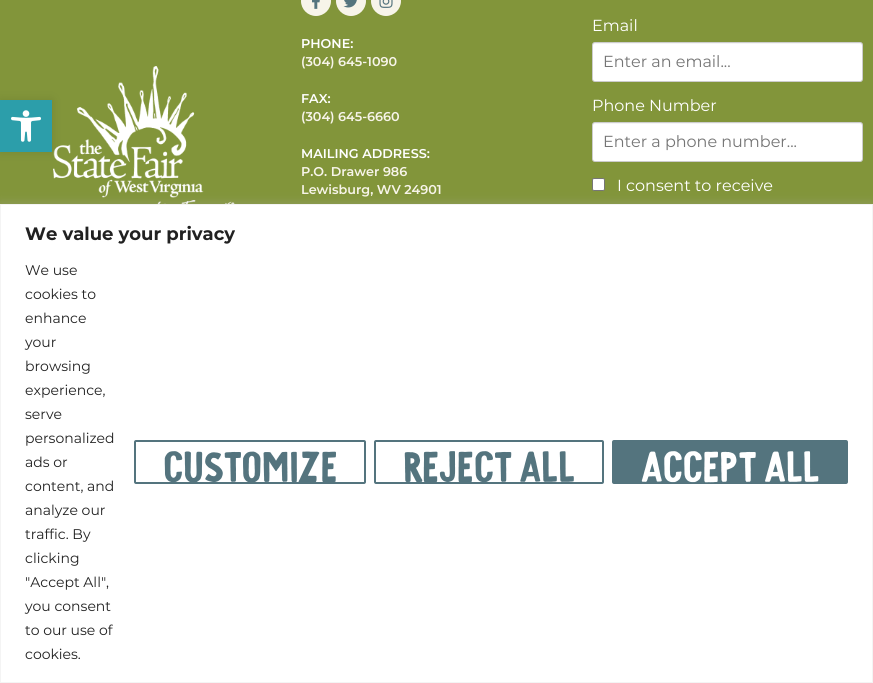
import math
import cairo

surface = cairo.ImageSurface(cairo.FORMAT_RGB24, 873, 683)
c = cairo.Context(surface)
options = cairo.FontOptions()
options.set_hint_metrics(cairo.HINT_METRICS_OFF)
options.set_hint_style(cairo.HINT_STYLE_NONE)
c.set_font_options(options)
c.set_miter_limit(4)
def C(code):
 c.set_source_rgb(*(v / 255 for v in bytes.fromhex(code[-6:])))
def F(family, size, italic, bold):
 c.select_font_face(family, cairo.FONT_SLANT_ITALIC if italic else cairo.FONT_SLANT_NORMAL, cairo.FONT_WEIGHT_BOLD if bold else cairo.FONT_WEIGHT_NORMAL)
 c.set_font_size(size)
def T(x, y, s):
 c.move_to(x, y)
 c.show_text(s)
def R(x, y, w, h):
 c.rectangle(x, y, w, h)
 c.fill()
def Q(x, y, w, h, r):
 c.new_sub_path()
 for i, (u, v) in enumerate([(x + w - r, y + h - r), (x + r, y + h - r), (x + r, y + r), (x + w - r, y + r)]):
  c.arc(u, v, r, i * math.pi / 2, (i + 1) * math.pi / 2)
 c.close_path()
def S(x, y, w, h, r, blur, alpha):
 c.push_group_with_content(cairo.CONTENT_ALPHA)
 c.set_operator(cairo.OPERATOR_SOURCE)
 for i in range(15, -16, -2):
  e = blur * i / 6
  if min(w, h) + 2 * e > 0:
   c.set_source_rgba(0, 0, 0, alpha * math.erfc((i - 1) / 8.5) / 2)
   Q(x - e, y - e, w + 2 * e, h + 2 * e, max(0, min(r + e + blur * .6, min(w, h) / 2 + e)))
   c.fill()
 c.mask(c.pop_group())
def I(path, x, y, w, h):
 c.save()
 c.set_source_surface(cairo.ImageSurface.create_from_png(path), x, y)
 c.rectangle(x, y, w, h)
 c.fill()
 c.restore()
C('82953a')
c.paint()
I('2.png',53,66,182,138)
C('000000')
S(0,100,52,52,0,5,.1)
C('2c9eaa')
R(0,100,52,52)
I('1.png',11,110,30,32)
C('f7f4e9')
c.arc(316,1,15,0,2 * math.pi)
c.fill()
I('3.png',312,0,8,9)
c.arc(351,1,15,0,2 * math.pi)
c.fill()
I('4.png',343,0,14,8)
c.arc(386,1,15,0,2 * math.pi)
c.fill()
I('5.png',379,0,14,8)
F('Montserrat SemiBold',12.75,0,0)
C('ffffff')
T(301,48,'PHONE:')
C('f7f4e9')
T(301,66,'(304) 645-1090')
C('ffffff')
T(301,103,'FAX:')
C('f7f4e9')
T(301,121,'(304) 645-6660')
C('ffffff')
T(301,158,'MAILING ADDRESS:')
C('f7f4e9')
T(301,176,'P.O. Drawer 986')
T(301,194,'Lewisburg, WV 24901')
F('Montserrat',16,0,0)
C('ffffff')
T(592,31,'Email')
Q(592,42,271,40,3)
c.fill()
C('f5f5f5')
c.new_path()
c.move_to(595,44)
c.line_to(860,44)
c.curve_to(861,44,862,45,862,46)
c.line_to(862,44)
c.line_to(860,43)
c.line_to(595,43)
c.curve_to(593,43,593,45,593,46)
c.curve_to(593,45,594,44,595,44)
c.close_path()
c.fill()
Q(592.5,42.5,270,39,2.5)
c.set_source_rgba(0,0,0,0.2)
c.set_line_width(1)
c.stroke()
C('757575')
T(603,67,'Enter an email...')
C('ffffff')
T(592,111,'Phone Number')
Q(592,122,271,40,3)
c.fill()
C('f5f5f5')
c.new_path()
c.move_to(595,124)
c.line_to(860,124)
c.curve_to(861,124,862,125,862,126)
c.line_to(862,124)
c.line_to(860,123)
c.line_to(595,123)
c.curve_to(593,123,593,125,593,126)
c.curve_to(593,125,594,124,595,124)
c.close_path()
c.fill()
Q(592.5,122.5,270,39,2.5)
c.set_source_rgba(0,0,0,0.2)
c.stroke()
C('757575')
T(603,147,'Enter a phone number...')
C('ffffff')
Q(592.5,178.5,12,12,1.5)
c.fill_preserve()
C('767676')
c.stroke()
C('ffffff')
T(617,191,'I consent to receive')
C('acabab')
S(0,203,873,479,0,5,.3)
C('ffffff')
c.rectangle(.5,204.5,872,478)
c.fill_preserve()
C('f4f4f4')
c.stroke()
F('Montserrat',18,0,1)
C('212121')
T(25,240,'We value your privacy')
F('Montserrat',14,0,0)
T(25,275,'We use')
T(25,299,'cookies to')
T(25,323,'enhance')
T(25,347,'your')
T(25,371,'browsing')
T(25,395,'experience,')
T(25,419,'serve')
T(25,443,'personalized')
T(25,467,'ads or')
T(25,491,'content, and')
T(25,515,'analyze our')
T(25,539,'traffic. By')
T(25,563,'clicking')
T(25,587,'"Accept All",')
T(25,611,'you consent')
T(25,635,'to our use of')
T(25,659,'cookies.')
Q(135,441,230,42,1)
C('54747e')
c.set_line_width(2)
c.stroke()
F('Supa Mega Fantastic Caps',64,0,0)
T(163,482,'Customize')
Q(375,441,228,42,1)
c.stroke()
T(403,482,'Reject All')
Q(613,441,234,42,1)
c.fill_preserve()
c.stroke()
C('ffffff')
T(641,482,'Accept All')
surface.write_to_png('o.png')
